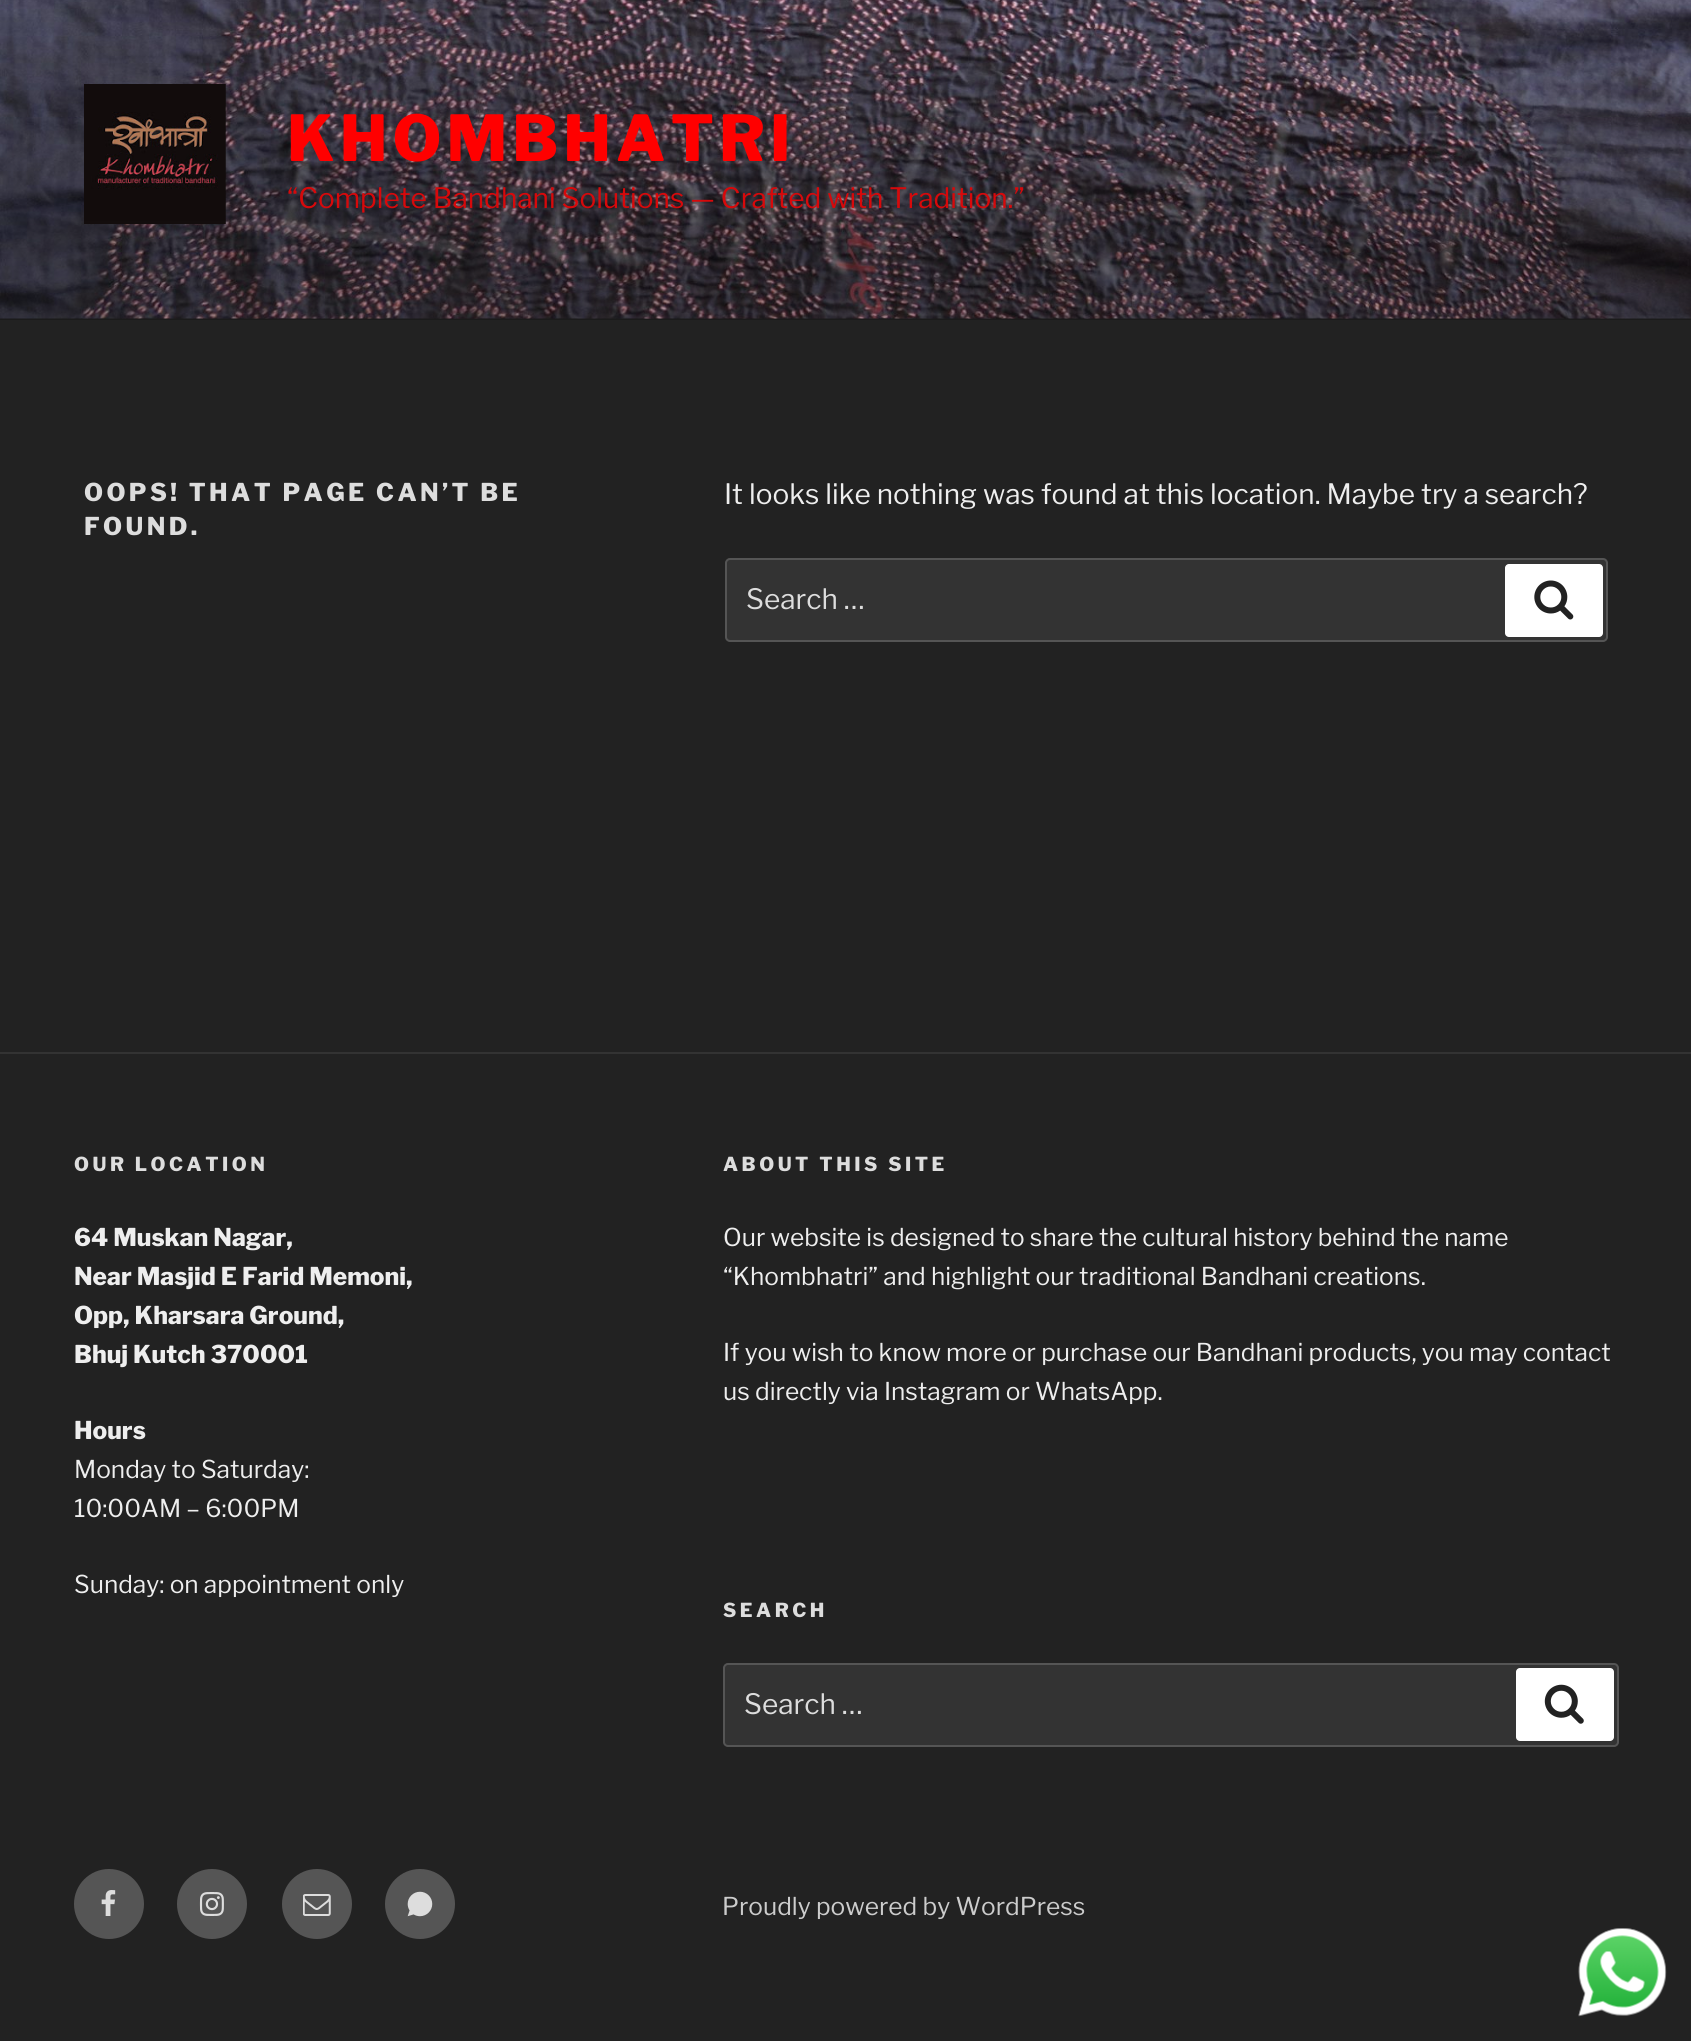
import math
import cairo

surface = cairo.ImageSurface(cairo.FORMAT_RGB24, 1691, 2041)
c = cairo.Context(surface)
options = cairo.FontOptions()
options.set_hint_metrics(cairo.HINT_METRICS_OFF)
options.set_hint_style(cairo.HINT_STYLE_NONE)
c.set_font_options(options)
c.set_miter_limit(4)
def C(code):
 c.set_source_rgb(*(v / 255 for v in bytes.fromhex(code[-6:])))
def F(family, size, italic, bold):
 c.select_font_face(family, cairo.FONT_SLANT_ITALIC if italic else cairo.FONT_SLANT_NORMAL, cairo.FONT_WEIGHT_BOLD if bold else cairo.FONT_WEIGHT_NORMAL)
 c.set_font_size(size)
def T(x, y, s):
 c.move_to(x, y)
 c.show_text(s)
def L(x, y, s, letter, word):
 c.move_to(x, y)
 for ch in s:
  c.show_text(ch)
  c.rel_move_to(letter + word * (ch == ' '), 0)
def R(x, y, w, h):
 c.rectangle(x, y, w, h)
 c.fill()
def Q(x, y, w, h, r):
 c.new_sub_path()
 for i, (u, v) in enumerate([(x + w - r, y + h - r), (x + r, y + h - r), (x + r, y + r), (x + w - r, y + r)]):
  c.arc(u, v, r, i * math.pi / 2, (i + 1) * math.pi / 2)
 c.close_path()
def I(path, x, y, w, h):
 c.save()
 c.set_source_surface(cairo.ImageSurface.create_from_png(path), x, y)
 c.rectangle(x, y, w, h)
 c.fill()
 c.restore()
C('222222')
c.paint()
C('262626')
R(0,318,1691,2)
I('1.png',0,0,1691,319)
gradient = cairo.LinearGradient(846,0,846,320)
gradient.add_color_stop_rgba(0,0,0,0,0)
gradient.add_color_stop_rgba(.75,0,0,0,.3)
gradient.add_color_stop_rgba(1,0,0,0,.3)
c.set_source(gradient)
R(0,17,1691,303)
I('2.png',84,84,142,140)
F('Libre Franklin Thin',63,0,0)
C('ff0000')
L(287,161,'KHOMBHATRI',5,0)
F('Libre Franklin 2 Thin',28,0,0)
C('d7090b')
T(287,208,'“Complete Bandhani Solutions — Crafted with Tradition.”')
F('Libre Franklin Thin',24.5,0,0)
C('dddddd')
L(84,501,'OOPS! THAT PAGE CAN’T BE',3.4,0)
L(84,535,'FOUND.',3.4,0)
F('Libre Franklin 2 Thin',28,0,0)
C('eeeeee')
T(724,504,'It looks like nothing was found at this location. Maybe try a search?')
C('333333')
Q(726,559,881,82,4)
c.fill_preserve()
C('555555')
c.stroke()
C('dddddd')
T(746,609,'Search …')
C('ffffff')
Q(1505,564,98,73,4)
c.fill()
I('3.png',1534,580,40,40)
C('333333')
R(0,1052,1691,2)
F('Libre Franklin Thin',19.25,0,0)
C('dddddd')
L(74,1171,'OUR LOCATION',3.5,0)
F('Libre Franklin Thin',24.5,0,0)
C('eeeeee')
T(74,1246,'64 Muskan Nagar,')
T(74,1285,'Near Masjid E Farid Memoni,')
T(74,1324,'Opp, Kharsara Ground,')
T(74,1363,'Bhuj Kutch 370001')
T(74,1439,'Hours')
F('Libre Franklin 2 Thin',24.5,0,0)
T(74,1478,'Monday to Saturday:')
T(74,1517,'10:00AM – 6:00PM')
T(74,1593,'Sunday: on appointment only')
F('Libre Franklin Thin',19.25,0,0)
C('dddddd')
L(723,1171,'ABOUT THIS SITE',3.5,0)
F('Libre Franklin 2 Thin',24.5,0,0)
C('eeeeee')
T(723,1246,'Our website is designed to share the cultural history behind the name')
T(723,1285,'“Khombhatri” and highlight our traditional Bandhani creations.')
T(723,1361,'If you wish to know more or purchase our Bandhani products, you may contact')
T(723,1400,'us directly via Instagram or WhatsApp.')
F('Libre Franklin Thin',19.25,0,0)
C('dddddd')
L(723,1617,'SEARCH',3.5,0)
C('333333')
Q(724,1664,894,82,4)
c.fill_preserve()
C('555555')
c.stroke()
F('Libre Franklin 2 Thin',28,0,0)
C('dddddd')
T(744,1714,'Search …')
C('ffffff')
Q(1516,1668,98,73,4)
c.fill()
I('4.png',1544,1684,40,40)
C('555555')
c.arc(109,1904,35,0,2 * math.pi)
c.fill()
I('5.png',101,1890,15,26)
c.arc(212,1904,35,0,2 * math.pi)
c.fill()
I('6.png',199,1892,25,24)
c.arc(317,1904,35,0,2 * math.pi)
c.fill()
I('7.png',303,1894,28,22)
c.arc(420,1904,35,0,2 * math.pi)
c.fill()
I('8.png',407,1891,26,26)
F('Libre Franklin 2 Thin',24.5,0,0)
C('cccccc')
T(722,1915,'Proudly powered by WordPress')
I('9.png',1578,1928,89,89)
surface.write_to_png('o.png')
